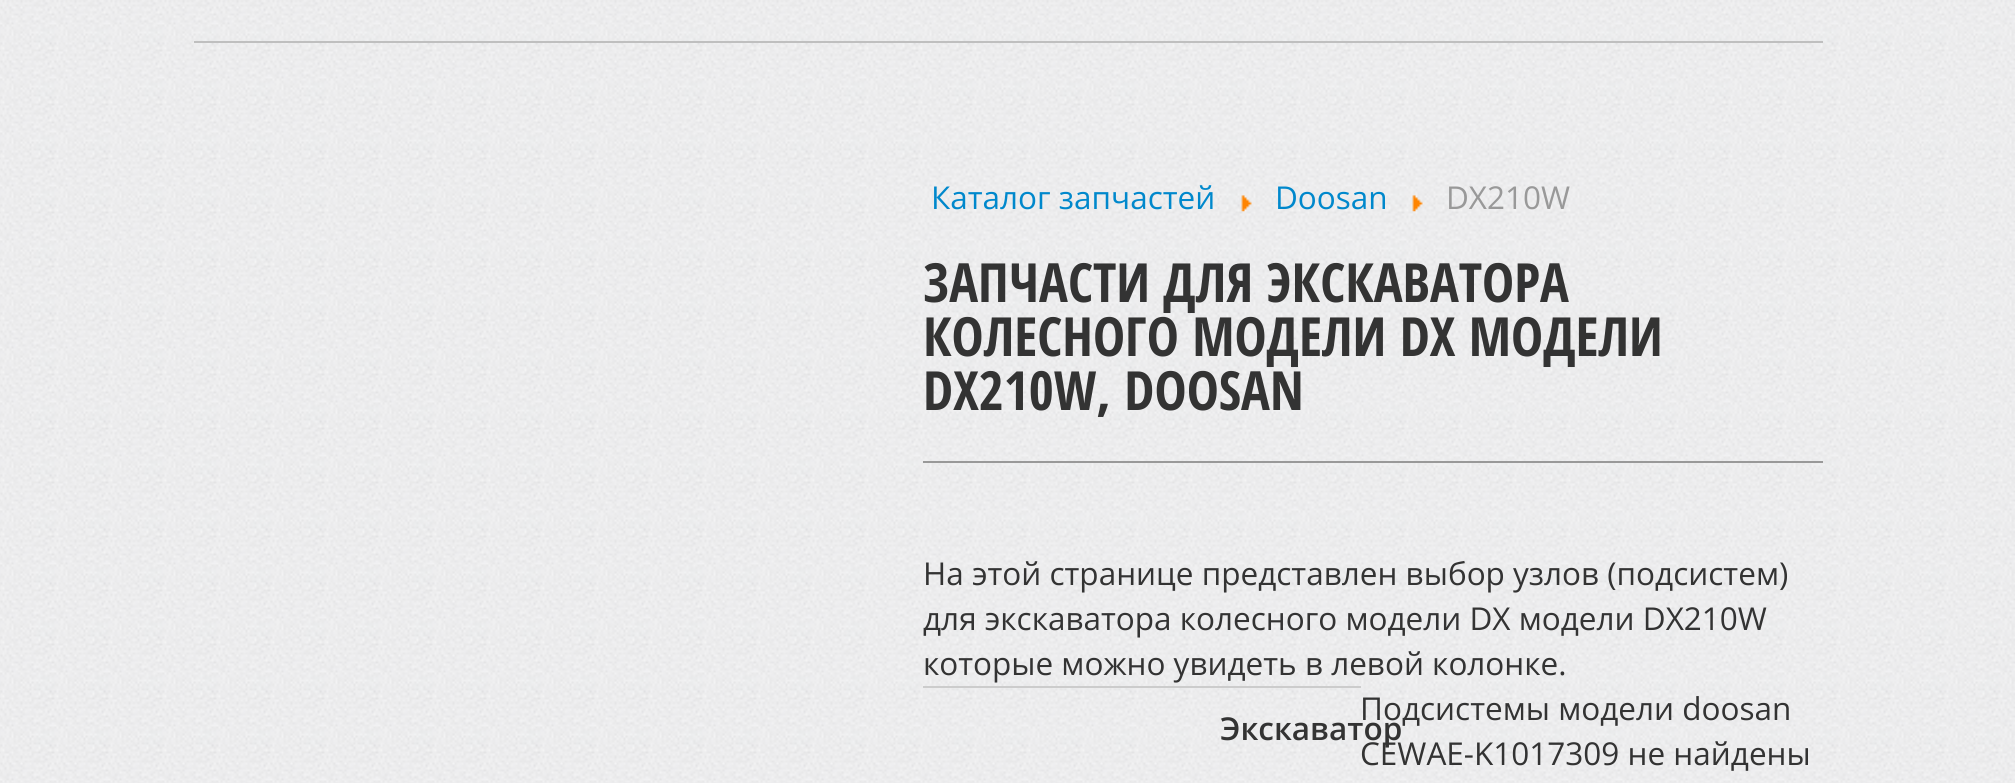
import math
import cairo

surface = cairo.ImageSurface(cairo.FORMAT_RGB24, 2015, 783)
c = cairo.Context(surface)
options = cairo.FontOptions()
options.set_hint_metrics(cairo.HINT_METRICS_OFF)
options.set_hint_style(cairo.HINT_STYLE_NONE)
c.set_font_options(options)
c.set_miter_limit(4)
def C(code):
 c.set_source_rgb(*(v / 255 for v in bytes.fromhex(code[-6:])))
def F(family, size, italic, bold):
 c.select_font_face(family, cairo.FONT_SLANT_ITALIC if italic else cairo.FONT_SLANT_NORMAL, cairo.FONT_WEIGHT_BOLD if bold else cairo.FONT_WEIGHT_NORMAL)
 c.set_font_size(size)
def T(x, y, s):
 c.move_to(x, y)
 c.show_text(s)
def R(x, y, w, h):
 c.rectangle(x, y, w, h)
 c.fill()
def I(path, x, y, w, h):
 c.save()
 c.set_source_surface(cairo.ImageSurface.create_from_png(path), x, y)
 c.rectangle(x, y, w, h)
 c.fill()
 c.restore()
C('ffffff')
c.paint()
I('1.png',0,0,2015,783)
C('bfbfbf')
R(194,41,1629,2)
F('Open Sans',31.5,0,0)
C('0088cc')
T(931,209,'Каталог запчастей')
I('2.png',1241,195,11,17)
T(1275,209,'Doosan')
I('3.png',1412,195,11,17)
C('999999')
T(1446,209,'DX210W')
R(923,461,900,2)
F('Open Sans Condensed',54,0,1)
C('333333')
T(923,302,'ЗАПЧАСТИ ДЛЯ ЭКСКАВАТОРА')
T(923,356,'КОЛЕСНОГО МОДЕЛИ DX МОДЕЛИ')
T(923,410,'DX210W, DOOSAN')
F('Open Sans',31.5,0,0)
T(923,585,'На этой странице представлен выбор узлов (подсистем)')
T(923,630,'для экскаватора колесного модели DX модели DX210W')
T(923,675,'которые можно увидеть в левой колонке.')
C('cccccc')
R(923,686,438,2)
F('Open Sans SemiBold',31.5,0,0)
C('333333')
T(1220,740,'Экскаватор')
F('Open Sans',31.5,0,0)
T(1360,720,'Подсистемы модели doosan')
T(1360,765,'CEWAE-K1017309 не найдены')
surface.write_to_png('o.png')
